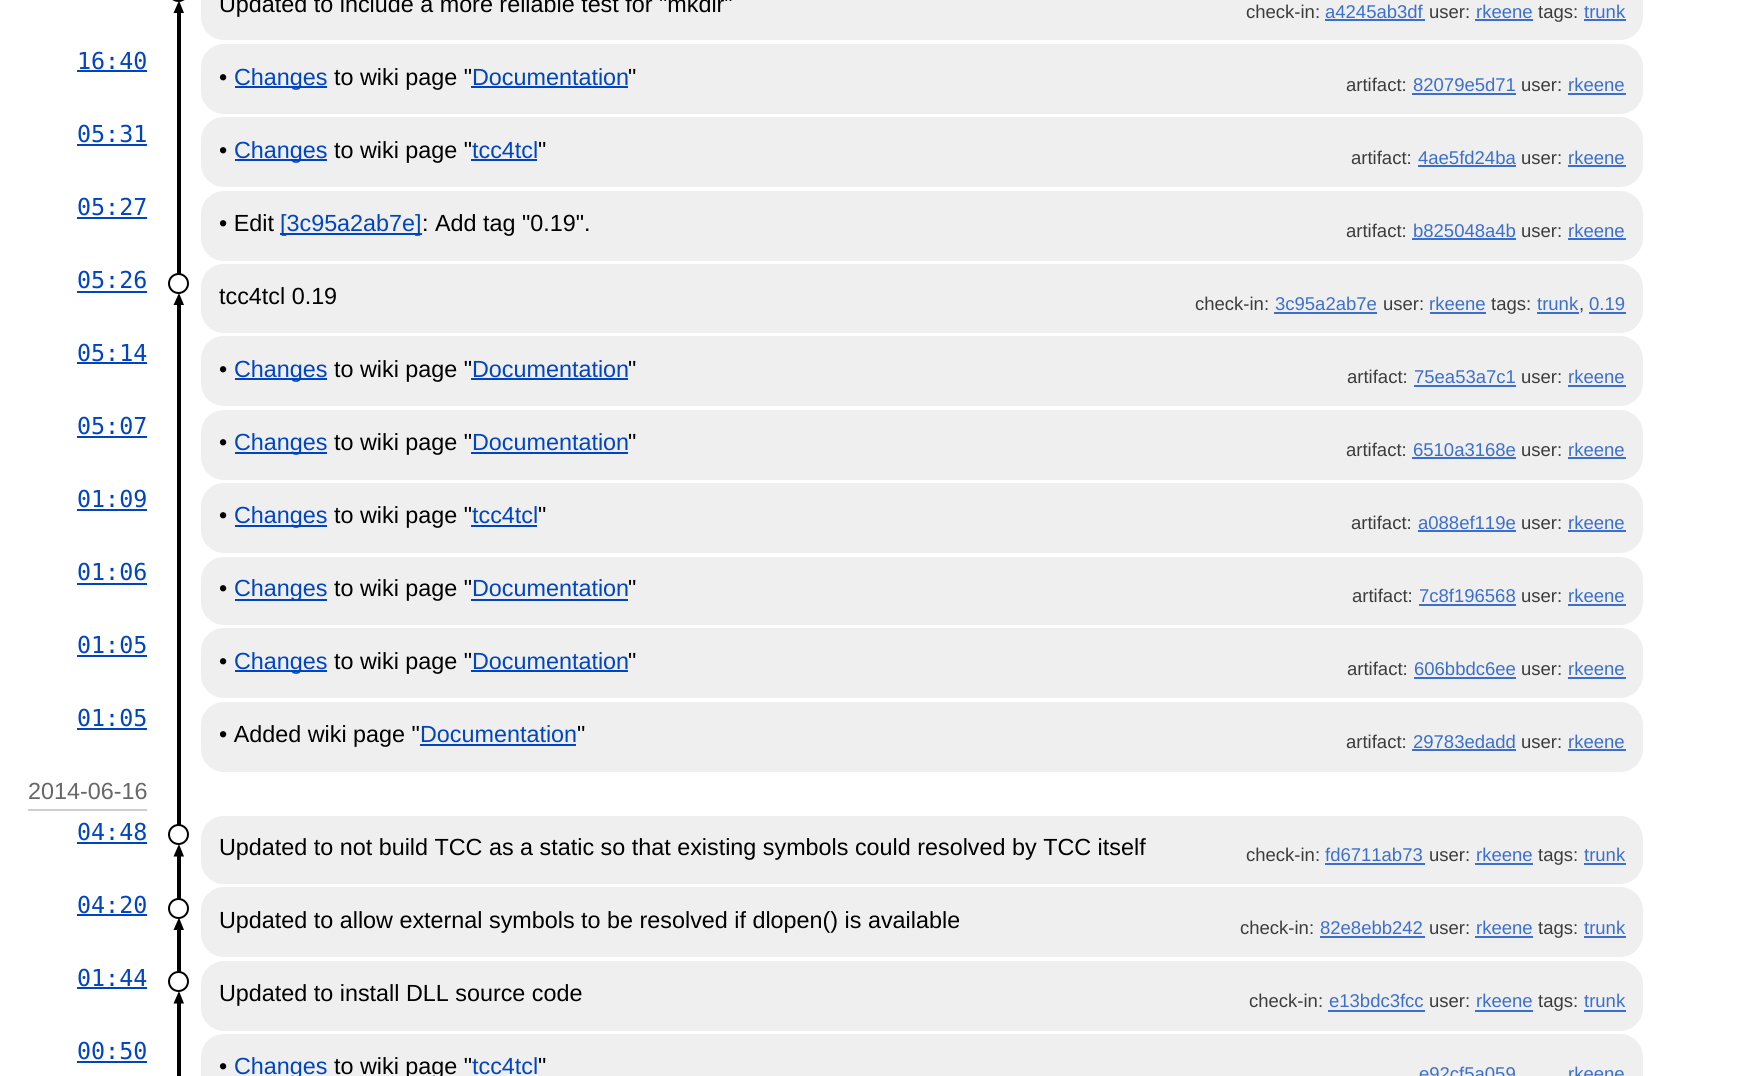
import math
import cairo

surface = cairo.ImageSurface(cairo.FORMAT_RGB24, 1756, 1076)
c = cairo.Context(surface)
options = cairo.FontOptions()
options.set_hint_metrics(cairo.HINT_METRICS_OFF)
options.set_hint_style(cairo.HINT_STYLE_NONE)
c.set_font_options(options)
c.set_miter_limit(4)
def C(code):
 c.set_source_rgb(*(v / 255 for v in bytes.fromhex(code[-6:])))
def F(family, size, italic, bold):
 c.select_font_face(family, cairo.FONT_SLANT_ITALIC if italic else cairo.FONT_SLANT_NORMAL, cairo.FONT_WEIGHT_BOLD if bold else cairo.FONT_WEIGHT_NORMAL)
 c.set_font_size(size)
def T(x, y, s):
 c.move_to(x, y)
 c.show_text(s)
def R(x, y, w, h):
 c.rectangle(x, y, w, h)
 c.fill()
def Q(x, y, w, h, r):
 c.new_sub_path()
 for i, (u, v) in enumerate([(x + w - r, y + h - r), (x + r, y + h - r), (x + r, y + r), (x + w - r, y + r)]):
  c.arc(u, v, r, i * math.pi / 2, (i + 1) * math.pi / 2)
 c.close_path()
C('ffffff')
c.paint()
C('000000')
R(177,9,4,265)
c.new_path()
c.move_to(184,13)
c.line_to(173.5,13)
c.line_to(179,.5)
c.close_path()
c.fill()
Q(169,-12,19,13,9.5)
c.stroke()
R(177,301,4,524)
c.new_path()
c.move_to(184,305)
c.line_to(173.5,305)
c.line_to(179,293)
c.close_path()
c.fill()
C('ffffff')
c.arc(178.5,283.5,9.5,0,2 * math.pi)
c.fill_preserve()
C('000000')
c.stroke()
R(177,852,4,47)
c.new_path()
c.move_to(184,856.5)
c.line_to(173.5,856.5)
c.line_to(179,844)
c.close_path()
c.fill()
C('ffffff')
c.arc(178.5,834.5,9.5,0,2 * math.pi)
c.fill_preserve()
C('000000')
c.stroke()
R(177,926,4,46)
c.new_path()
c.move_to(184,930)
c.line_to(173.5,930)
c.line_to(179,917.5)
c.close_path()
c.fill()
C('ffffff')
c.arc(178.5,908.5,9.5,0,2 * math.pi)
c.fill_preserve()
C('000000')
c.stroke()
R(177,999,4,77)
c.new_path()
c.move_to(184,1003.5)
c.line_to(173.5,1003.5)
c.line_to(179,991)
c.close_path()
c.fill()
C('ffffff')
c.arc(178.5,981.5,9.5,0,2 * math.pi)
c.fill_preserve()
C('000000')
c.stroke()
C('efefef')
Q(201,-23,1442,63,23)
c.fill()
F('Liberation Sans',23.35,0,0)
C('000000')
T(219,12,'Updated to include a more reliable test for "mkdir"')
F('Liberation Sans',18.5,0,0)
C('3c3c3c')
T(1246,18,'check-in:')
C('3c6fcc')
T(1325,18,'a4245ab3df')
R(1325,19,100,2)
C('3c3c3c')
T(1429,18,'user:')
C('3c6fcc')
T(1476,18,'rkeene')
R(1475,19,58,2)
C('3c3c3c')
T(1538,18,'tags:')
C('3c6fcc')
T(1584,18,'trunk')
R(1584,19,42,2)
F('DejaVu Sans Mono',23.35,0,0)
C('0044c0')
T(77,69,'16:40')
R(77,70,70,2)
C('efefef')
Q(201,44,1442,70,23)
c.fill()
C('0044c0')
R(235,86,92,2)
F('Liberation Sans',23.35,0,0)
T(234,85,'Changes')
C('000000')
T(334,85,'to wiki page "')
C('0044c0')
R(471,86,157,2)
T(472,85,'Documentation')
C('000000')
T(628,85,'"')
T(219,85,'•')
F('Liberation Sans',18.5,0,0)
C('3c3c3c')
T(1346,91,'artifact:')
C('3c6fcc')
T(1413,91,'82079e5d71')
R(1412,93,104,2)
C('3c3c3c')
T(1521,91,'user:')
C('3c6fcc')
T(1568,91,'rkeene')
R(1568,93,58,2)
F('DejaVu Sans Mono',23.35,0,0)
C('0044c0')
T(77,142,'05:31')
R(77,144,70,2)
C('efefef')
Q(201,117,1442,70,23)
c.fill()
C('0044c0')
R(235,159,92,2)
F('Liberation Sans',23.35,0,0)
T(234,158,'Changes')
C('000000')
T(334,158,'to wiki page "')
C('0044c0')
R(471,159,66,2)
T(472,158,'tcc4tcl')
C('000000')
T(538,158,'"')
T(219,158,'•')
F('Liberation Sans',18.5,0,0)
C('3c3c3c')
T(1351,164,'artifact:')
C('3c6fcc')
T(1418,164,'4ae5fd24ba')
R(1418,165,98,2)
C('3c3c3c')
T(1521,164,'user:')
C('3c6fcc')
T(1568,164,'rkeene')
R(1568,165,58,2)
F('DejaVu Sans Mono',23.35,0,0)
C('0044c0')
T(77,215,'05:27')
R(77,217,70,2)
C('efefef')
Q(201,191,1442,70,23)
c.fill()
F('Liberation Sans',23.35,0,0)
C('000000')
T(219,231,'• Edit')
C('0044c0')
R(280,233,142,2)
T(280,231,'[3c95a2ab7e]')
C('000000')
T(422,231,': Add tag "0.19".')
F('Liberation Sans',18.5,0,0)
C('3c3c3c')
T(1346,237,'artifact:')
C('3c6fcc')
T(1413,237,'b825048a4b')
R(1412,238,104,2)
C('3c3c3c')
T(1521,237,'user:')
C('3c6fcc')
T(1568,237,'rkeene')
R(1568,238,58,2)
F('DejaVu Sans Mono',23.35,0,0)
C('0044c0')
T(77,288,'05:26')
R(77,291,70,2)
C('efefef')
Q(201,264,1442,69,23)
c.fill()
F('Liberation Sans',23.35,0,0)
C('000000')
T(219,304,'tcc4tcl 0.19')
F('Liberation Sans',18.5,0,0)
C('3c3c3c')
T(1195,310,'check-in:')
C('3c6fcc')
T(1275,310,'3c95a2ab7e')
R(1274,312,103,2)
C('3c3c3c')
T(1383,310,'user:')
C('3c6fcc')
T(1429,310,'rkeene')
R(1430,312,56,2)
C('3c3c3c')
T(1491,310,'tags:')
C('3c6fcc')
T(1537,310,'trunk')
R(1537,312,42,2)
C('3c3c3c')
T(1579,310,',')
C('3c6fcc')
T(1589,310,'0.19')
R(1589,312,37,2)
F('DejaVu Sans Mono',23.35,0,0)
C('0044c0')
T(77,361,'05:14')
R(77,362,70,2)
C('efefef')
Q(201,336,1442,70,23)
c.fill()
C('0044c0')
R(235,378,92,2)
F('Liberation Sans',23.35,0,0)
T(234,377,'Changes')
C('000000')
T(334,377,'to wiki page "')
C('0044c0')
R(471,378,157,2)
T(472,377,'Documentation')
C('000000')
T(628,377,'"')
T(219,377,'•')
F('Liberation Sans',18.5,0,0)
C('3c3c3c')
T(1347,383,'artifact:')
C('3c6fcc')
T(1414,383,'75ea53a7c1')
R(1414,385,102,2)
C('3c3c3c')
T(1521,383,'user:')
C('3c6fcc')
T(1568,383,'rkeene')
R(1568,385,58,2)
F('DejaVu Sans Mono',23.35,0,0)
C('0044c0')
T(77,434,'05:07')
R(77,436,70,2)
C('efefef')
Q(201,410,1442,70,23)
c.fill()
C('0044c0')
R(235,452,92,2)
F('Liberation Sans',23.35,0,0)
T(234,450,'Changes')
C('000000')
T(334,450,'to wiki page "')
C('0044c0')
R(471,452,157,2)
T(472,450,'Documentation')
C('000000')
T(628,450,'"')
T(219,450,'•')
F('Liberation Sans',18.5,0,0)
C('3c3c3c')
T(1346,456,'artifact:')
C('3c6fcc')
T(1413,456,'6510a3168e')
R(1412,457,104,2)
C('3c3c3c')
T(1521,456,'user:')
C('3c6fcc')
T(1568,456,'rkeene')
R(1568,457,58,2)
F('DejaVu Sans Mono',23.35,0,0)
C('0044c0')
T(77,507,'01:09')
R(77,509,70,2)
C('efefef')
Q(201,483,1442,70,23)
c.fill()
C('0044c0')
R(235,525,92,2)
F('Liberation Sans',23.35,0,0)
T(234,523,'Changes')
C('000000')
T(334,523,'to wiki page "')
C('0044c0')
R(471,525,66,2)
T(472,523,'tcc4tcl')
C('000000')
T(538,523,'"')
T(219,523,'•')
F('Liberation Sans',18.5,0,0)
C('3c3c3c')
T(1351,529,'artifact:')
C('3c6fcc')
T(1418,529,'a088ef119e')
R(1418,530,98,2)
C('3c3c3c')
T(1521,529,'user:')
C('3c6fcc')
T(1568,529,'rkeene')
R(1568,530,58,2)
F('DejaVu Sans Mono',23.35,0,0)
C('0044c0')
T(77,580,'01:06')
R(77,583,70,2)
C('efefef')
Q(201,557,1442,68,23)
c.fill()
C('0044c0')
R(235,599,92,2)
F('Liberation Sans',23.35,0,0)
T(234,596,'Changes')
C('000000')
T(334,596,'to wiki page "')
C('0044c0')
R(471,599,157,2)
T(472,596,'Documentation')
C('000000')
T(628,596,'"')
T(219,596,'•')
F('Liberation Sans',18.5,0,0)
C('3c3c3c')
T(1352,602,'artifact:')
C('3c6fcc')
T(1419,602,'7c8f196568')
R(1419,604,97,2)
C('3c3c3c')
T(1521,602,'user:')
C('3c6fcc')
T(1568,602,'rkeene')
R(1568,604,58,2)
F('DejaVu Sans Mono',23.35,0,0)
C('0044c0')
T(77,653,'01:05')
R(77,655,70,2)
C('efefef')
Q(201,628,1442,70,23)
c.fill()
C('0044c0')
R(235,670,92,2)
F('Liberation Sans',23.35,0,0)
T(234,669,'Changes')
C('000000')
T(334,669,'to wiki page "')
C('0044c0')
R(471,670,157,2)
T(472,669,'Documentation')
C('000000')
T(628,669,'"')
T(219,669,'•')
F('Liberation Sans',18.5,0,0)
C('3c3c3c')
T(1347,675,'artifact:')
C('3c6fcc')
T(1414,675,'606bbdc6ee')
R(1414,677,102,2)
C('3c3c3c')
T(1521,675,'user:')
C('3c6fcc')
T(1568,675,'rkeene')
R(1568,677,58,2)
F('DejaVu Sans Mono',23.35,0,0)
C('0044c0')
T(77,726,'01:05')
R(77,728,70,2)
C('efefef')
Q(201,702,1442,70,23)
c.fill()
F('Liberation Sans',23.35,0,0)
C('000000')
T(219,742,'• Added wiki page "')
C('0044c0')
T(420,742,'Documentation')
R(420,744,156,2)
C('000000')
T(577,742,'"')
F('Liberation Sans',18.5,0,0)
C('3c3c3c')
T(1346,748,'artifact:')
C('3c6fcc')
T(1413,748,'29783edadd')
R(1412,749,104,2)
C('3c3c3c')
T(1521,748,'user:')
C('3c6fcc')
T(1568,748,'rkeene')
R(1568,749,58,2)
C('cccfcc')
R(28,809,119,2)
F('Liberation Sans',23.35,0,0)
C('666866')
T(28,799,'2014-06-16')
F('DejaVu Sans Mono',23.35,0,0)
C('0044c0')
T(77,840,'04:48')
R(77,842,70,2)
C('efefef')
Q(201,816,1442,68,23)
c.fill()
F('Liberation Sans',23.35,0,0)
C('000000')
T(219,855,'Updated to not build TCC as a static so that existing symbols could resolved by TCC itself')
F('Liberation Sans',18.5,0,0)
C('3c3c3c')
T(1246,861,'check-in:')
C('3c6fcc')
T(1325,861,'fd6711ab73')
R(1325,863,100,2)
C('3c3c3c')
T(1429,861,'user:')
C('3c6fcc')
T(1476,861,'rkeene')
R(1475,863,58,2)
C('3c3c3c')
T(1538,861,'tags:')
C('3c6fcc')
T(1584,861,'trunk')
R(1584,863,42,2)
F('DejaVu Sans Mono',23.35,0,0)
C('0044c0')
T(77,913,'04:20')
R(77,914,70,2)
C('efefef')
Q(201,887,1442,70,23)
c.fill()
F('Liberation Sans',23.35,0,0)
C('000000')
T(219,928,'Updated to allow external symbols to be resolved if dlopen() is available')
F('Liberation Sans',18.5,0,0)
C('3c3c3c')
T(1240,934,'check-in:')
C('3c6fcc')
T(1320,934,'82e8ebb242')
R(1320,936,105,2)
C('3c3c3c')
T(1429,934,'user:')
C('3c6fcc')
T(1476,934,'rkeene')
R(1475,936,58,2)
C('3c3c3c')
T(1538,934,'tags:')
C('3c6fcc')
T(1584,934,'trunk')
R(1584,936,42,2)
F('DejaVu Sans Mono',23.35,0,0)
C('0044c0')
T(77,986,'01:44')
R(77,987,70,2)
C('efefef')
Q(201,961,1442,70,23)
c.fill()
F('Liberation Sans',23.35,0,0)
C('000000')
T(219,1001,'Updated to install DLL source code')
F('Liberation Sans',18.5,0,0)
C('3c3c3c')
T(1249,1007,'check-in:')
C('3c6fcc')
T(1329,1007,'e13bdc3fcc')
R(1328,1010,97,2)
C('3c3c3c')
T(1429,1007,'user:')
C('3c6fcc')
T(1476,1007,'rkeene')
R(1475,1010,58,2)
C('3c3c3c')
T(1538,1007,'tags:')
C('3c6fcc')
T(1584,1007,'trunk')
R(1584,1010,42,2)
F('DejaVu Sans Mono',23.35,0,0)
C('0044c0')
T(77,1059,'00:50')
R(77,1061,70,2)
C('efefef')
Q(201,1034,1442,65,23)
c.fill()
F('Liberation Sans',23.35,0,0)
C('0044c0')
T(234,1074,'Changes')
C('000000')
T(334,1074,'to wiki page "')
C('0044c0')
T(472,1074,'tcc4tcl')
C('000000')
T(538,1074,'"')
T(219,1074,'•')
F('Liberation Sans',18.5,0,0)
C('3c6fcc')
T(1419,1080,'e92cf5a059')
T(1568,1080,'rkeene')
surface.write_to_png('o.png')
